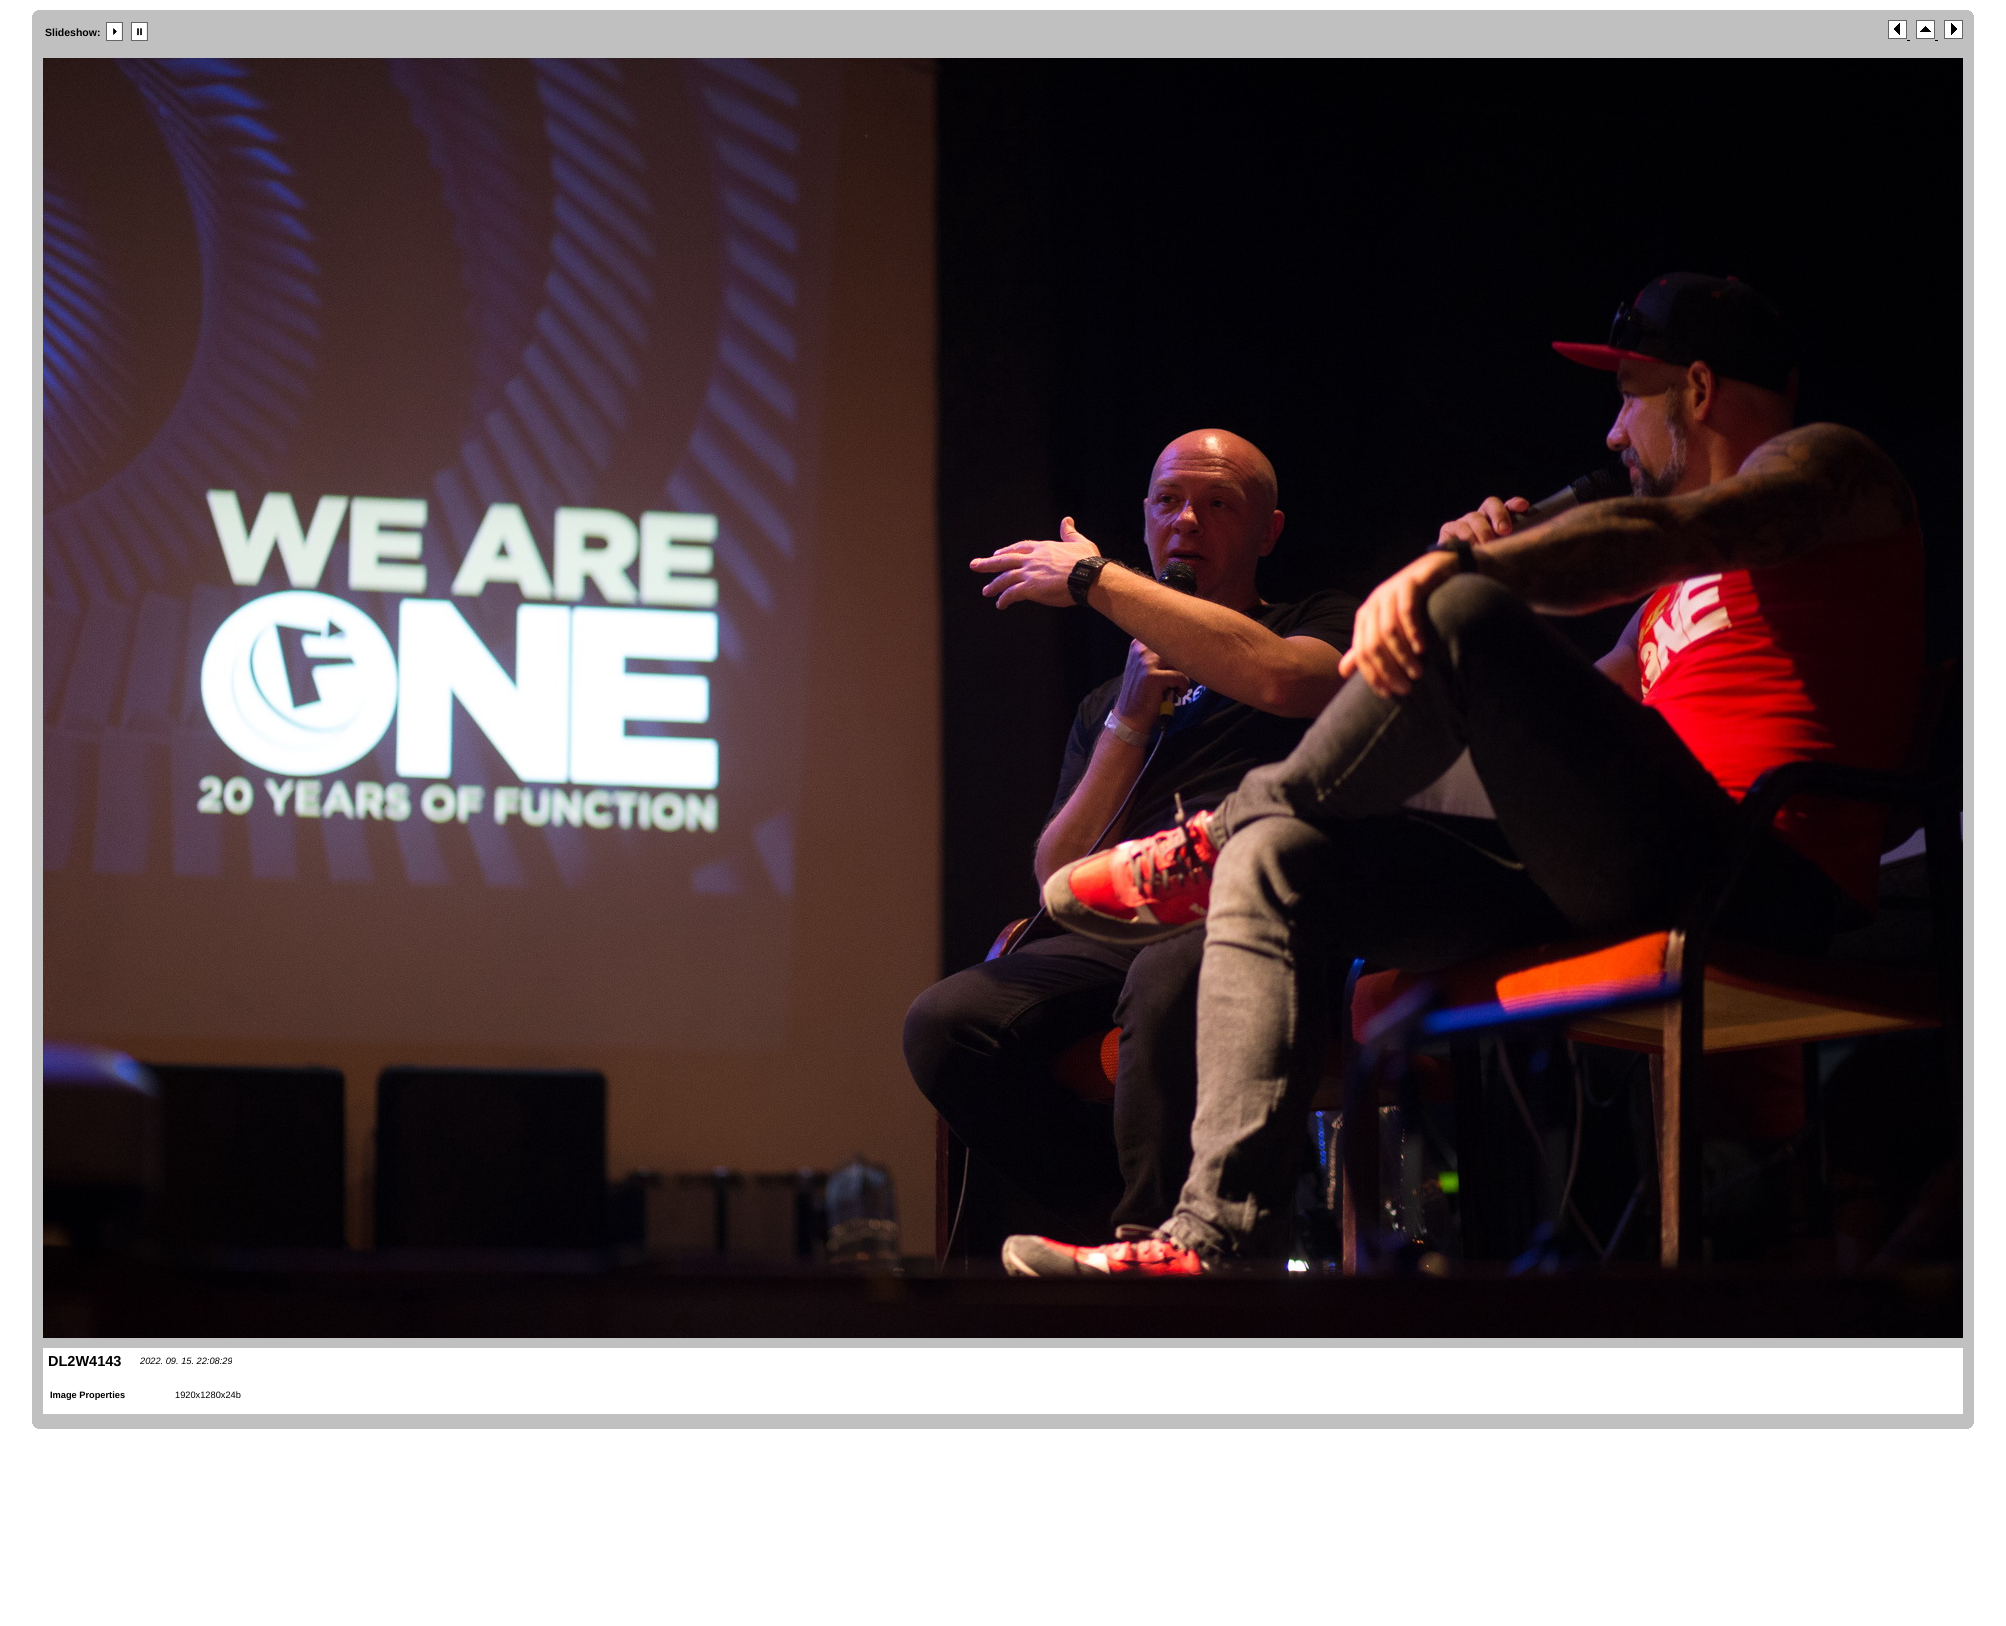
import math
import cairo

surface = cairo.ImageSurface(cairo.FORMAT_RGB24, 2006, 1626)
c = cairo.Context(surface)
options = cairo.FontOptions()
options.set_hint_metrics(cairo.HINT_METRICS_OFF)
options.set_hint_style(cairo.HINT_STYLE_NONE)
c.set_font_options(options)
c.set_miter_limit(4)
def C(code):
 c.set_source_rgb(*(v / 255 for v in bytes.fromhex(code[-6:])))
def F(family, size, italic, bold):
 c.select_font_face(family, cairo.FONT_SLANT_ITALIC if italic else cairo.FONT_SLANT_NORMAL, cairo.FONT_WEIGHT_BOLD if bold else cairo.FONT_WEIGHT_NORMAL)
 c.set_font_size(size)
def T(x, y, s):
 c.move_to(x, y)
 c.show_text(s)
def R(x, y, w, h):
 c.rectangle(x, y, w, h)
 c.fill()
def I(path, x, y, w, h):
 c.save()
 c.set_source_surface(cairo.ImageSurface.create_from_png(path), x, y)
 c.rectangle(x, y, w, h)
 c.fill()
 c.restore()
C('ffffff')
c.paint()
C('c0c0c0')
R(37,10,1932,1)
R(35,11,1936,1)
R(34,12,1938,1)
R(33,13,1940,2)
R(32,15,1942,1409)
F('Liberation Sans',10.5,0,1)
C('000000')
T(45,36,'Slideshow:')
I('1.png',106,22,17,19)
I('2.png',131,22,17,19)
I('3.png',1888,20,19,19)
I('4.png',1916,20,19,19)
I('5.png',1944,20,19,19)
R(1907,40,3,1)
R(1935,40,3,1)
I('6.png',43,58,1920,1280)
C('ffffff')
R(43,1348,1920,66)
F('Liberation Sans',14.5,0,1)
C('000000')
T(48,1366,'DL2W4143')
F('Liberation Sans',9.25,1,0)
T(140,1364,'2022. 09. 15. 22:08:29')
F('Liberation Sans',9.25,0,1)
T(50,1398,'Image Properties')
F('Liberation Sans',9.25,0,0)
T(175,1398,'1920x1280x24b')
C('c0c0c0')
R(33,1424,1940,2)
R(34,1426,1938,1)
R(35,1427,1936,1)
R(37,1428,1932,1)
surface.write_to_png('o.png')
